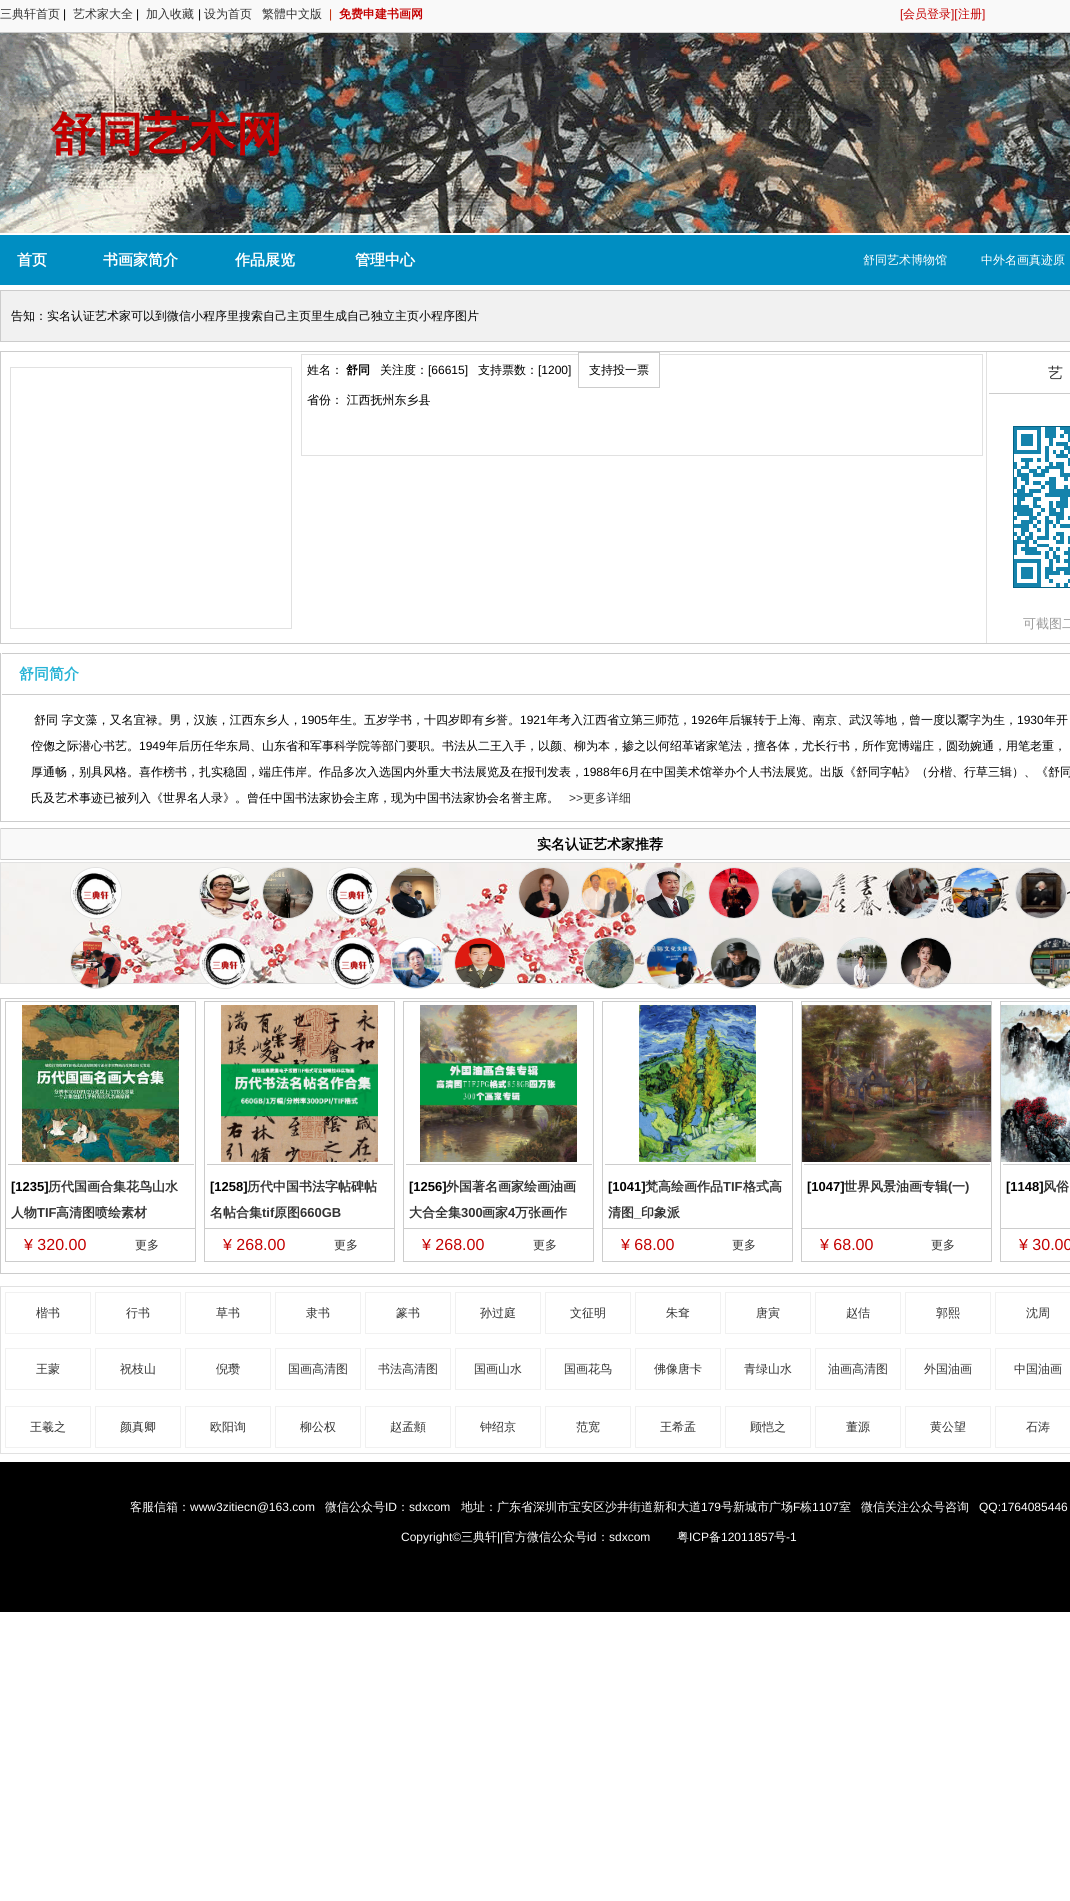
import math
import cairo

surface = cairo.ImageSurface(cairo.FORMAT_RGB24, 1070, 1901)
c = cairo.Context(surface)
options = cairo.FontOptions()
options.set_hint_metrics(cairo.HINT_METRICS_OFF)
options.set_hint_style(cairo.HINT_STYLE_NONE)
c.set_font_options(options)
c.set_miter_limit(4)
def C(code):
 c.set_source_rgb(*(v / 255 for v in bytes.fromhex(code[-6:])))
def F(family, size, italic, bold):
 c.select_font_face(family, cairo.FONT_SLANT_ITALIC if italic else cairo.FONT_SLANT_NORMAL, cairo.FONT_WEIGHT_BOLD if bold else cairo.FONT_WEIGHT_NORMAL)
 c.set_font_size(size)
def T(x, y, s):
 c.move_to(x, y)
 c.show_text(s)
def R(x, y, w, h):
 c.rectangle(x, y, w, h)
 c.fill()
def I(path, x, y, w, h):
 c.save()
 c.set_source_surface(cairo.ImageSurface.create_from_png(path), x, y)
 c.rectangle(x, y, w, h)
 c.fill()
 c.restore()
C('ffffff')
c.paint()
C('f9f9f9')
R(0,0,1070,32)
C('cccccc')
R(0,32,1070,1)
F('WenQuanYi Zen Hei Medium',12,0,0)
C('333333')
T(0,18,'三典轩首页')
F('Liberation Sans',12,0,0)
C('000000')
T(63,18,'|')
F('WenQuanYi Zen Hei Medium',12,0,0)
C('333333')
T(73,18,'艺术家大全')
F('Liberation Sans',12,0,0)
C('000000')
T(136,18,'|')
F('WenQuanYi Zen Hei Medium',12,0,0)
C('333333')
T(146,18,'加入收藏')
F('Liberation Sans',12,0,0)
C('000000')
T(198,18,'|')
F('WenQuanYi Zen Hei Medium',12,0,0)
C('333333')
T(204,18,'设为首页')
T(262,18,'繁體中文版')
F('Liberation Sans',12,0,0)
C('bf2600')
T(329,18,'|')
F('WenQuanYi Zen Hei',12,0,1)
C('c40000')
T(339,18,'免费申建书画网')
F('Liberation Sans',12,0,0)
T(900,18,'[')
F('WenQuanYi Zen Hei Medium',12,0,0)
T(903,18,'会员登录')
F('Liberation Sans',12,0,0)
T(951,18,'][')
F('WenQuanYi Zen Hei Medium',12,0,0)
T(958,18,'注册')
F('Liberation Sans',12,0,0)
T(982,18,']')
I('1.png',0,33,1070,200)
F('WenQuanYi Zen Hei',46.5,0,1)
T(50,150,'舒同艺术网')
C('008ec2')
R(0,235,1070,50)
F('WenQuanYi Zen Hei',15,0,1)
C('ffffff')
T(17,265,'首页')
T(103,265,'书画家简介')
T(235,265,'作品展览')
T(355,265,'管理中心')
F('WenQuanYi Zen Hei Medium',12,0,0)
T(863,264,'舒同艺术博物馆')
T(981,264,'中外名画真迹原')
C('f1f1f1')
c.rectangle(.5,290.5,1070,51)
c.fill_preserve()
C('cccccc')
c.set_line_width(1)
c.stroke()
C('000000')
T(11,320,'告知：实名认证艺术家可以到微信小程序里搜索自己主页里生成自己独立主页小程序图片')
c.rectangle(.5,351.5,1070,292)
C('cccccc')
c.stroke()
c.rectangle(10.5,367.5,281,261)
C('e1e1e1')
c.stroke()
c.rectangle(301.5,354.5,681,101)
c.stroke()
C('000000')
T(307,374,'姓名：')
F('WenQuanYi Zen Hei',12,0,1)
T(346,374,'舒同')
F('WenQuanYi Zen Hei Medium',12,0,0)
T(380,374,'关注度：')
F('Liberation Sans',12,0,0)
T(428,374,'[66615]')
F('WenQuanYi Zen Hei Medium',12,0,0)
T(478,374,'支持票数：')
F('Liberation Sans',12,0,0)
T(538,374,'[1200]')
C('ffffff')
R(579,354,80,1)
c.rectangle(578.5,352.5,81,35)
C('cccccc')
c.stroke()
F('WenQuanYi Zen Hei Medium',12,0,0)
C('000000')
T(589,374,'支持投一票')
T(307,404,'省份： 江西抚州东乡县')
C('e1e1e1')
R(986,352,1,291)
C('cccccc')
R(988,393,82,1)
C('ffffff')
R(988,393,1,1)
F('WenQuanYi Zen Hei Medium',15,0,0)
C('333333')
T(1048,378,'艺')
c.rectangle(1013.5,426.5,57,161)
C('056386')
c.stroke()
I('2.png',1014,427,56,160)
F('WenQuanYi Zen Hei Medium',13,0,0)
C('999999')
T(1023,628,'可截图二')
C('cccccc')
R(0,821,1070,1)
R(0,653,1,169)
R(2,653,1068,1)
R(2,694,1068,1)
F('WenQuanYi Zen Hei',15,0,1)
C('27b3d6')
T(19,679,'舒同简介')
F('WenQuanYi Zen Hei Medium',12,0,0)
C('000000')
T(34,724,'舒同 字文藻，又名宜禄。男，汉族，江西东乡人，')
F('Liberation Sans',12,0,0)
T(301,724,'1905')
F('WenQuanYi Zen Hei Medium',12,0,0)
T(328,724,'年生。五岁学书，十四岁即有乡誉。')
F('Liberation Sans',12,0,0)
T(520,724,'1921')
F('WenQuanYi Zen Hei Medium',12,0,0)
T(547,724,'年考入江西省立第三师范，')
F('Liberation Sans',12,0,0)
T(691,724,'1926')
F('WenQuanYi Zen Hei Medium',12,0,0)
T(717,724,'年后辗转于上海、南京、武汉等地，曾一度以鬻字为生，')
F('Liberation Sans',12,0,0)
T(1017,724,'1930')
F('WenQuanYi Zen Hei Medium',12,0,0)
T(1044,724,'年开')
T(31,750,'倥偬之际潜心书艺。')
F('Liberation Sans',12,0,0)
T(139,750,'1949')
F('WenQuanYi Zen Hei Medium',12,0,0)
T(166,750,'年后历任华东局、山东省和军事科学院等部门要职。书法从二王入手，以颜、柳为本，掺之以何绍革诸家笔法，擅各体，尤长行书，所作宽博端庄，圆劲婉通，用笔老重，')
T(31,776,'厚通畅，别具风格。喜作榜书，扎实稳固，端庄伟岸。作品多次入选国内外重大书法展览及在报刊发表，')
F('Liberation Sans',12,0,0)
T(583,776,'1988')
F('WenQuanYi Zen Hei Medium',12,0,0)
T(610,776,'年')
F('Liberation Sans',12,0,0)
T(622,776,'6')
F('WenQuanYi Zen Hei Medium',12,0,0)
T(628,776,'月在中国美术馆举办个人书法展览。出版《舒同字帖》（分楷、行草三辑）、《舒同')
T(31,802,'氏及艺术事迹已被列入《世界名人录》。曾任中国书法家协会主席，现为中国书法家协会名誉主席。')
F('Liberation Sans',12,0,0)
C('333333')
T(569,802,'>>')
F('WenQuanYi Zen Hei Medium',12,0,0)
T(583,802,'更多详细')
C('f9f9f9')
R(1,829,1069,30)
C('cccccc')
R(0,828,1070,1)
R(0,859,1070,1)
C('e1e1e1')
R(0,828,1,32)
F('WenQuanYi Zen Hei',14,0,1)
C('000000')
T(537,849,'实名认证艺术家推荐')
I('3.png',1,863,1069,120)
c.rectangle(.5,862.5,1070,121)
C('e1e1e1')
c.stroke()
C('ffffff')
c.arc(96,893,25.5,0,2 * math.pi)
c.fill_preserve()
C('e1e1e1')
c.stroke()
C('ffffff')
c.arc(225,893,25.5,0,2 * math.pi)
c.fill_preserve()
C('e1e1e1')
c.stroke()
C('ffffff')
c.arc(288,893,25.5,0,2 * math.pi)
c.fill_preserve()
C('e1e1e1')
c.stroke()
C('ffffff')
c.arc(352,893,25.5,0,2 * math.pi)
c.fill_preserve()
C('e1e1e1')
c.stroke()
C('ffffff')
c.arc(415,893,25.5,0,2 * math.pi)
c.fill_preserve()
C('e1e1e1')
c.stroke()
C('ffffff')
c.arc(544,893,25.5,0,2 * math.pi)
c.fill_preserve()
C('e1e1e1')
c.stroke()
C('ffffff')
c.arc(607,893,25.5,0,2 * math.pi)
c.fill_preserve()
C('e1e1e1')
c.stroke()
C('ffffff')
c.arc(670,893,25.5,0,2 * math.pi)
c.fill_preserve()
C('e1e1e1')
c.stroke()
C('ffffff')
c.arc(734,893,25.5,0,2 * math.pi)
c.fill_preserve()
C('e1e1e1')
c.stroke()
C('ffffff')
c.arc(797,893,25.5,0,2 * math.pi)
c.fill_preserve()
C('e1e1e1')
c.stroke()
C('ffffff')
c.arc(914,893,25.5,0,2 * math.pi)
c.fill_preserve()
C('e1e1e1')
c.stroke()
C('ffffff')
c.arc(977,893,25.5,0,2 * math.pi)
c.fill_preserve()
C('e1e1e1')
c.stroke()
C('ffffff')
c.arc(1041,893,25.5,0,2 * math.pi)
c.fill_preserve()
C('e1e1e1')
c.stroke()
I('4.png',71,868,50,50)
I('5.png',200,868,50,50)
I('6.png',263,868,50,50)
I('7.png',327,868,50,50)
I('8.png',390,868,50,50)
I('9.png',519,868,50,50)
I('10.png',582,868,50,50)
I('11.png',645,868,50,50)
I('12.png',709,868,50,50)
I('13.png',772,868,50,50)
I('14.png',889,868,50,50)
I('15.png',952,868,50,50)
I('16.png',1016,868,50,50)
C('ffffff')
c.arc(96,963,25.5,0,2 * math.pi)
c.fill_preserve()
C('e1e1e1')
c.stroke()
C('ffffff')
c.arc(225,963,25.5,0,2 * math.pi)
c.fill_preserve()
C('e1e1e1')
c.stroke()
C('ffffff')
c.arc(354,963,25.5,0,2 * math.pi)
c.fill_preserve()
C('e1e1e1')
c.stroke()
C('ffffff')
c.arc(417,963,25.5,0,2 * math.pi)
c.fill_preserve()
C('e1e1e1')
c.stroke()
C('ffffff')
c.arc(480,963,25.5,0,2 * math.pi)
c.fill_preserve()
C('e1e1e1')
c.stroke()
C('ffffff')
c.arc(609,963,25.5,0,2 * math.pi)
c.fill_preserve()
C('e1e1e1')
c.stroke()
C('ffffff')
c.arc(672,963,25.5,0,2 * math.pi)
c.fill_preserve()
C('e1e1e1')
c.stroke()
C('ffffff')
c.arc(736,963,25.5,0,2 * math.pi)
c.fill_preserve()
C('e1e1e1')
c.stroke()
C('ffffff')
c.arc(799,963,25.5,0,2 * math.pi)
c.fill_preserve()
C('e1e1e1')
c.stroke()
C('ffffff')
c.arc(862,963,25.5,0,2 * math.pi)
c.fill_preserve()
C('e1e1e1')
c.stroke()
C('ffffff')
c.arc(926,963,25.5,0,2 * math.pi)
c.fill_preserve()
C('e1e1e1')
c.stroke()
C('ffffff')
c.arc(1055,963,25.5,0,2 * math.pi)
c.fill_preserve()
C('e1e1e1')
c.stroke()
I('17.png',71,938,50,50)
I('18.png',200,938,50,50)
I('19.png',329,938,50,50)
I('20.png',392,938,50,50)
I('21.png',455,938,50,50)
I('22.png',584,938,50,50)
I('23.png',647,938,50,50)
I('24.png',711,938,50,50)
I('25.png',774,938,50,50)
I('26.png',837,938,50,50)
I('27.png',901,938,50,50)
I('28.png',1030,938,40,50)
c.rectangle(.5,998.5,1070,275)
C('cccccc')
c.stroke()
c.rectangle(5.5,1001.5,190,260)
c.stroke()
I('29.png',22,1005,157,157)
R(8,1164,186,1)
F('Liberation Sans',13,0,1)
C('000000')
T(11,1191,'[1235]')
F('WenQuanYi Zen Hei',13,0,1)
C('333333')
T(48,1191,'历代国画合集花鸟山水')
T(11,1217,'人物')
F('Liberation Sans',13,0,1)
T(37,1217,'TIF')
F('WenQuanYi Zen Hei',13,0,1)
T(56,1217,'高清图喷绘素材')
C('cccccc')
R(6,1228,189,1)
F('Liberation Sans',16,0,0)
C('c40000')
T(24,1250,'¥ 320.00')
F('WenQuanYi Zen Hei Medium',12,0,0)
C('333333')
T(135,1249,'更多')
c.rectangle(204.5,1001.5,190,260)
C('cccccc')
c.stroke()
I('30.png',221,1005,157,157)
R(207,1164,186,1)
F('Liberation Sans',13,0,1)
C('000000')
T(210,1191,'[1258]')
F('WenQuanYi Zen Hei',13,0,1)
C('333333')
T(247,1191,'历代中国书法字帖碑帖')
T(210,1217,'名帖合集')
F('Liberation Sans',13,0,1)
T(262,1217,'tif')
F('WenQuanYi Zen Hei',13,0,1)
T(274,1217,'原图')
F('Liberation Sans',13,0,1)
T(300,1217,'660GB')
C('cccccc')
R(205,1228,189,1)
F('Liberation Sans',16,0,0)
C('c40000')
T(223,1250,'¥ 268.00')
F('WenQuanYi Zen Hei Medium',12,0,0)
C('333333')
T(334,1249,'更多')
c.rectangle(403.5,1001.5,190,260)
C('cccccc')
c.stroke()
I('31.png',420,1005,157,157)
R(406,1164,186,1)
F('Liberation Sans',13,0,1)
C('000000')
T(409,1191,'[1256]')
F('WenQuanYi Zen Hei',13,0,1)
C('333333')
T(446,1191,'外国著名画家绘画油画')
T(409,1217,'大合全集')
F('Liberation Sans',13,0,1)
T(461,1217,'300')
F('WenQuanYi Zen Hei',13,0,1)
T(482,1217,'画家')
F('Liberation Sans',13,0,1)
T(508,1217,'4')
F('WenQuanYi Zen Hei',13,0,1)
T(515,1217,'万张画作')
C('cccccc')
R(404,1228,189,1)
F('Liberation Sans',16,0,0)
C('c40000')
T(422,1250,'¥ 268.00')
F('WenQuanYi Zen Hei Medium',12,0,0)
C('333333')
T(533,1249,'更多')
c.rectangle(602.5,1001.5,190,260)
C('cccccc')
c.stroke()
I('32.png',639,1005,117,157)
R(605,1164,186,1)
F('Liberation Sans',13,0,1)
C('000000')
T(608,1191,'[1041]')
F('WenQuanYi Zen Hei',13,0,1)
C('333333')
T(645,1191,'梵高绘画作品')
F('Liberation Sans',13,0,1)
T(723,1191,'TIF')
F('WenQuanYi Zen Hei',13,0,1)
T(743,1191,'格式高')
T(608,1217,'清图')
F('Liberation Sans',13,0,1)
T(634,1217,'_')
F('WenQuanYi Zen Hei',13,0,1)
T(641,1217,'印象派')
C('cccccc')
R(603,1228,189,1)
F('Liberation Sans',16,0,0)
C('c40000')
T(621,1250,'¥ 68.00')
F('WenQuanYi Zen Hei Medium',12,0,0)
C('333333')
T(732,1249,'更多')
c.rectangle(801.5,1001.5,190,260)
C('cccccc')
c.stroke()
I('33.png',802,1005,189,157)
R(804,1164,186,1)
F('Liberation Sans',13,0,1)
C('000000')
T(807,1191,'[1047]')
F('WenQuanYi Zen Hei',13,0,1)
C('333333')
T(844,1191,'世界风景油画专辑')
F('Liberation Sans',13,0,1)
T(948,1191,'(')
F('WenQuanYi Zen Hei',13,0,1)
T(952,1191,'一')
F('Liberation Sans',13,0,1)
T(965,1191,')')
C('cccccc')
R(802,1228,189,1)
F('Liberation Sans',16,0,0)
C('c40000')
T(820,1250,'¥ 68.00')
F('WenQuanYi Zen Hei Medium',12,0,0)
C('333333')
T(931,1249,'更多')
c.rectangle(1000.5,1001.5,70,260)
C('cccccc')
c.stroke()
I('34.png',1001,1005,69,157)
R(1003,1164,67,1)
F('Liberation Sans',13,0,1)
C('000000')
T(1006,1191,'[1148]')
F('WenQuanYi Zen Hei',13,0,1)
C('333333')
T(1043,1191,'风俗')
C('cccccc')
R(1001,1228,69,1)
F('Liberation Sans',16,0,0)
C('c40000')
T(1019,1250,'¥ 30.00')
c.rectangle(.5,1286.5,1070,167)
C('e1e1e1')
c.stroke()
c.rectangle(5.5,1292.5,85,41)
C('f1f1f1')
c.stroke()
F('WenQuanYi Zen Hei Medium',12,0,0)
C('333333')
T(36,1317,'楷书')
c.rectangle(95.5,1292.5,85,41)
C('f1f1f1')
c.stroke()
C('333333')
T(126,1317,'行书')
c.rectangle(185.5,1292.5,85,41)
C('f1f1f1')
c.stroke()
C('333333')
T(216,1317,'草书')
c.rectangle(275.5,1292.5,85,41)
C('f1f1f1')
c.stroke()
C('333333')
T(306,1317,'隶书')
c.rectangle(365.5,1292.5,85,41)
C('f1f1f1')
c.stroke()
C('333333')
T(396,1317,'篆书')
c.rectangle(455.5,1292.5,85,41)
C('f1f1f1')
c.stroke()
C('333333')
T(480,1317,'孙过庭')
c.rectangle(545.5,1292.5,85,41)
C('f1f1f1')
c.stroke()
C('333333')
T(570,1317,'文征明')
c.rectangle(635.5,1292.5,85,41)
C('f1f1f1')
c.stroke()
C('333333')
T(666,1317,'朱耷')
c.rectangle(725.5,1292.5,85,41)
C('f1f1f1')
c.stroke()
C('333333')
T(756,1317,'唐寅')
c.rectangle(815.5,1292.5,85,41)
C('f1f1f1')
c.stroke()
C('333333')
T(846,1317,'赵佶')
c.rectangle(905.5,1292.5,85,41)
C('f1f1f1')
c.stroke()
C('333333')
T(936,1317,'郭熙')
c.rectangle(995.5,1292.5,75,41)
C('f1f1f1')
c.stroke()
C('333333')
T(1026,1317,'沈周')
c.rectangle(5.5,1348.5,85,41)
C('f1f1f1')
c.stroke()
C('333333')
T(36,1373,'王蒙')
c.rectangle(95.5,1348.5,85,41)
C('f1f1f1')
c.stroke()
C('333333')
T(120,1373,'祝枝山')
c.rectangle(185.5,1348.5,85,41)
C('f1f1f1')
c.stroke()
C('333333')
T(216,1373,'倪瓒')
c.rectangle(275.5,1348.5,85,41)
C('f1f1f1')
c.stroke()
C('333333')
T(288,1373,'国画高清图')
c.rectangle(365.5,1348.5,85,41)
C('f1f1f1')
c.stroke()
C('333333')
T(378,1373,'书法高清图')
c.rectangle(455.5,1348.5,85,41)
C('f1f1f1')
c.stroke()
C('333333')
T(474,1373,'国画山水')
c.rectangle(545.5,1348.5,85,41)
C('f1f1f1')
c.stroke()
C('333333')
T(564,1373,'国画花鸟')
c.rectangle(635.5,1348.5,85,41)
C('f1f1f1')
c.stroke()
C('333333')
T(654,1373,'佛像唐卡')
c.rectangle(725.5,1348.5,85,41)
C('f1f1f1')
c.stroke()
C('333333')
T(744,1373,'青绿山水')
c.rectangle(815.5,1348.5,85,41)
C('f1f1f1')
c.stroke()
C('333333')
T(828,1373,'油画高清图')
c.rectangle(905.5,1348.5,85,41)
C('f1f1f1')
c.stroke()
C('333333')
T(924,1373,'外国油画')
c.rectangle(995.5,1348.5,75,41)
C('f1f1f1')
c.stroke()
C('333333')
T(1014,1373,'中国油画')
c.rectangle(5.5,1406.5,85,41)
C('f1f1f1')
c.stroke()
C('333333')
T(30,1431,'王羲之')
c.rectangle(95.5,1406.5,85,41)
C('f1f1f1')
c.stroke()
C('333333')
T(120,1431,'颜真卿')
c.rectangle(185.5,1406.5,85,41)
C('f1f1f1')
c.stroke()
C('333333')
T(210,1431,'欧阳询')
c.rectangle(275.5,1406.5,85,41)
C('f1f1f1')
c.stroke()
C('333333')
T(300,1431,'柳公权')
c.rectangle(365.5,1406.5,85,41)
C('f1f1f1')
c.stroke()
C('333333')
T(390,1431,'赵孟頫')
c.rectangle(455.5,1406.5,85,41)
C('f1f1f1')
c.stroke()
C('333333')
T(480,1431,'钟绍京')
c.rectangle(545.5,1406.5,85,41)
C('f1f1f1')
c.stroke()
C('333333')
T(576,1431,'范宽')
c.rectangle(635.5,1406.5,85,41)
C('f1f1f1')
c.stroke()
C('333333')
T(660,1431,'王希孟')
c.rectangle(725.5,1406.5,85,41)
C('f1f1f1')
c.stroke()
C('333333')
T(750,1431,'顾恺之')
c.rectangle(815.5,1406.5,85,41)
C('f1f1f1')
c.stroke()
C('333333')
T(846,1431,'董源')
c.rectangle(905.5,1406.5,85,41)
C('f1f1f1')
c.stroke()
C('333333')
T(930,1431,'黄公望')
c.rectangle(995.5,1406.5,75,41)
C('f1f1f1')
c.stroke()
C('333333')
T(1026,1431,'石涛')
C('000000')
R(0,1462,1070,150)
C('ffffff')
T(130,1511,'客服信箱：')
F('Liberation Sans',12,0,0)
T(190,1511,'www3zitiecn@163.com')
F('WenQuanYi Zen Hei Medium',12,0,0)
T(325,1511,'微信公众号')
F('Liberation Sans',12,0,0)
T(385,1511,'ID')
F('WenQuanYi Zen Hei Medium',12,0,0)
T(397,1511,'：')
F('Liberation Sans',12,0,0)
T(409,1511,'sdxcom')
F('WenQuanYi Zen Hei Medium',12,0,0)
T(461,1511,'地址：广东省深圳市宝安区沙井街道新和大道')
F('Liberation Sans',12,0,0)
T(701,1511,'179')
F('WenQuanYi Zen Hei Medium',12,0,0)
T(721,1511,'号新城市广场')
F('Liberation Sans',12,0,0)
T(793,1511,'F')
F('WenQuanYi Zen Hei Medium',12,0,0)
T(800,1511,'栋')
F('Liberation Sans',12,0,0)
T(812,1511,'1107')
F('WenQuanYi Zen Hei Medium',12,0,0)
T(839,1511,'室')
T(861,1511,'微信关注公众号咨询')
F('Liberation Sans',12,0,0)
T(979,1511,'QQ:1764085446')
T(401,1541,'Copyright©')
F('WenQuanYi Zen Hei Medium',12,0,0)
T(461,1541,'三典轩')
F('Liberation Sans',12,0,0)
T(497,1541,'||')
F('WenQuanYi Zen Hei Medium',12,0,0)
T(503,1541,'官方微信公众号')
F('Liberation Sans',12,0,0)
T(587,1541,'id')
F('WenQuanYi Zen Hei Medium',12,0,0)
T(597,1541,'：')
F('Liberation Sans',12,0,0)
T(609,1541,'sdxcom')
F('WenQuanYi Zen Hei Medium',12,0,0)
T(677,1541,'粤')
F('Liberation Sans',12,0,0)
T(689,1541,'ICP')
F('WenQuanYi Zen Hei Medium',12,0,0)
T(709,1541,'备')
F('Liberation Sans',12,0,0)
T(721,1541,'12011857')
F('WenQuanYi Zen Hei Medium',12,0,0)
T(774,1541,'号')
F('Liberation Sans',12,0,0)
T(786,1541,'-1')
surface.write_to_png('o.png')
